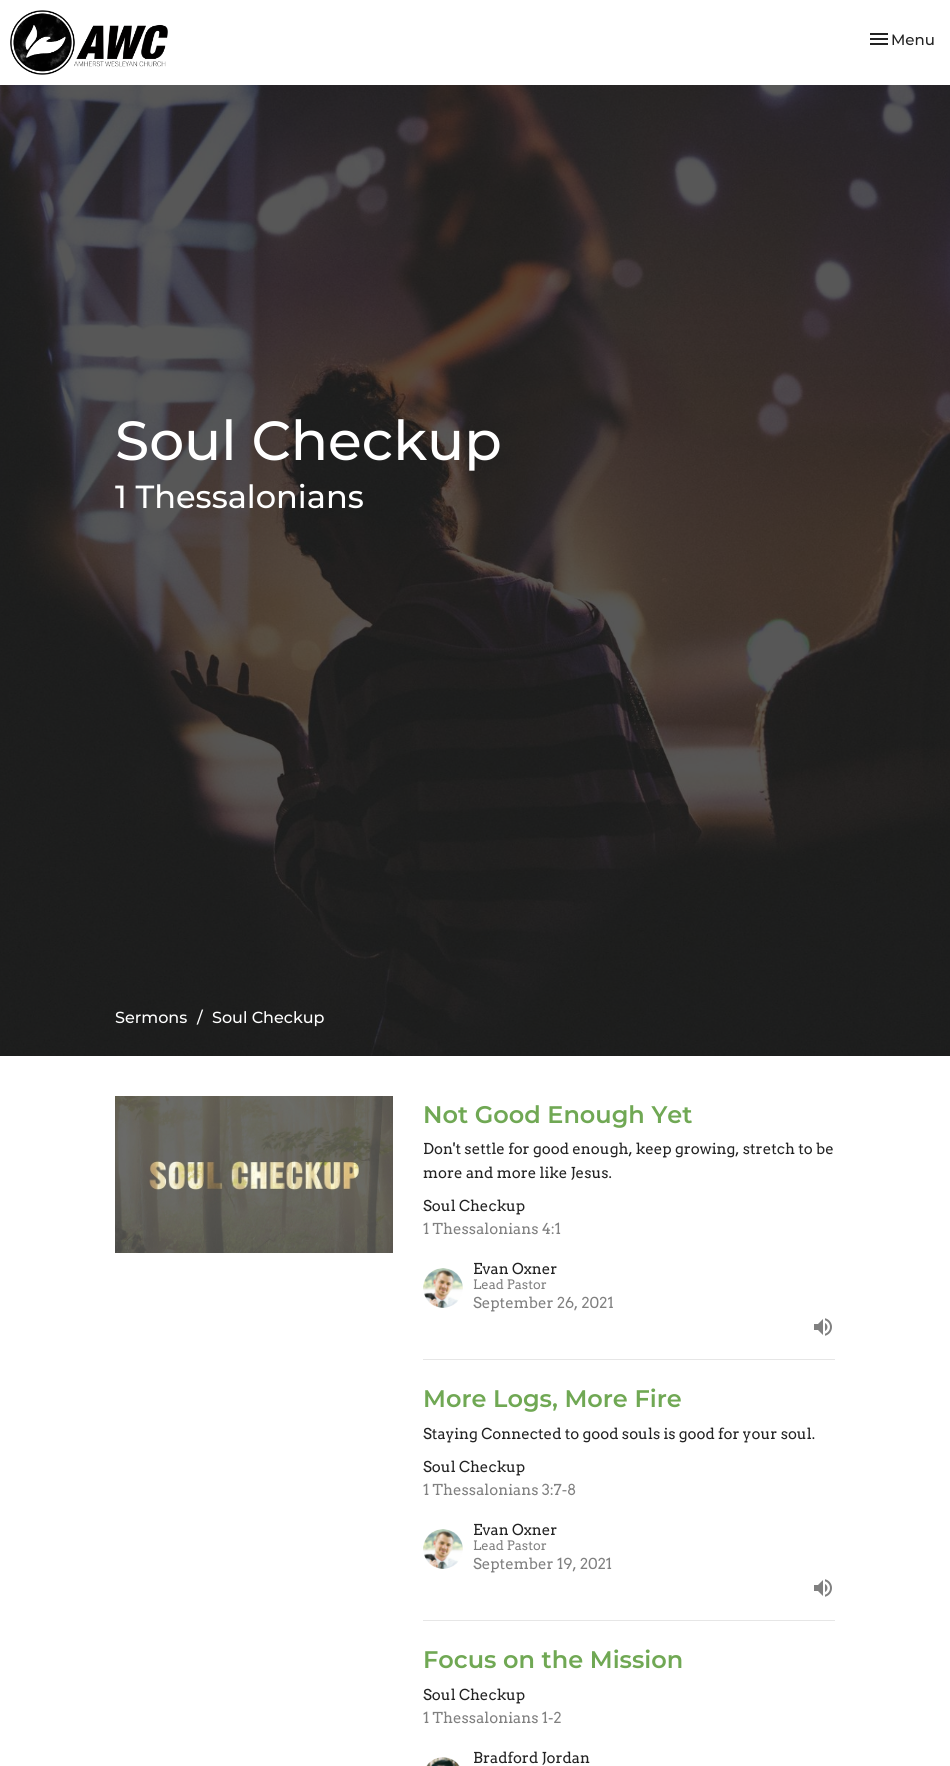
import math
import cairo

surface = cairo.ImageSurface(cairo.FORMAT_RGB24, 950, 1766)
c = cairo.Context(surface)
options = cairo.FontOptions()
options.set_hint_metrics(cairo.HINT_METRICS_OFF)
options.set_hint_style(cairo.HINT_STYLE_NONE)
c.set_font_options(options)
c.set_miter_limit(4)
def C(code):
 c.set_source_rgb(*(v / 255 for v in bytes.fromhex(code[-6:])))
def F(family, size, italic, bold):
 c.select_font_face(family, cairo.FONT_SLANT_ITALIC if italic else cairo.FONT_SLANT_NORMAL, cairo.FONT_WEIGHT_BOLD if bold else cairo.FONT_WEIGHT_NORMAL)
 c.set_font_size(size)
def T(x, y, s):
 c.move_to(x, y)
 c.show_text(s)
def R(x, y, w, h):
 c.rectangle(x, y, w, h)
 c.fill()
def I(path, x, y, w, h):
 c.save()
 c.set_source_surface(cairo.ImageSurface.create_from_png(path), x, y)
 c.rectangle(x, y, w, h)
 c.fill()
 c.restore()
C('ffffff')
c.paint()
I('1.png',10,10,158,65)
I('2.png',870,33,18,12)
F('Montserrat Medium',15,0,0)
C('222222')
T(891,45,'Menu')
I('3.png',0,85,950,971)
F('Montserrat Medium',55,0,0)
C('ffffff')
T(115,460,'Soul Checkup')
F('Montserrat Medium',32,0,0)
T(115,508,'1 Thessalonians')
F('Montserrat Medium',16,0,0)
T(115,1023,'Sermons')
T(197,1023,'/')
T(212,1023,'Soul Checkup')
I('4.png',115,1096,278,157)
C('e6e6e6')
R(423,1359,412,1)
F('Montserrat SemiBold',24,0,0)
C('70a854')
T(423,1123,'Not Good Enough Yet')
F('Arvo',15,0,0)
C('222222')
T(423,1154,'Don\'t settle for good enough, keep growing, stretch to be')
T(423,1178,'more and more like Jesus.')
T(423,1211,'Soul Checkup')
C('808080')
T(423,1234,'1 Thessalonians 4:1')
I('5.png',423,1268,40,40)
C('222222')
T(473,1274,'Evan Oxner')
F('Arvo',13,0,0)
C('808080')
T(473,1289,'Lead Pastor')
F('Arvo',15,0,0)
T(473,1308,'September 26, 2021')
I('6.png',814,1318,18,18)
C('e6e6e6')
R(423,1620,412,1)
F('Montserrat SemiBold',24,0,0)
C('70a854')
T(423,1407,'More Logs, More Fire')
F('Arvo',15,0,0)
C('222222')
T(423,1439,'Staying Connected to good souls is good for your soul.')
T(423,1472,'Soul Checkup')
C('808080')
T(423,1495,'1 Thessalonians 3:7-8')
I('7.png',423,1529,40,40)
C('222222')
T(473,1535,'Evan Oxner')
F('Arvo',13,0,0)
C('808080')
T(473,1550,'Lead Pastor')
F('Arvo',15,0,0)
T(473,1569,'September 19, 2021')
I('6.png',814,1579,18,18)
F('Montserrat SemiBold',24,0,0)
C('70a854')
T(423,1668,'Focus on the Mission')
F('Arvo',15,0,0)
C('222222')
T(423,1700,'Soul Checkup')
C('808080')
T(423,1723,'1 Thessalonians 1-2')
I('8.png',426,1757,34,9)
C('222222')
T(473,1763,'Bradford Jordan')
surface.write_to_png('o.png')
